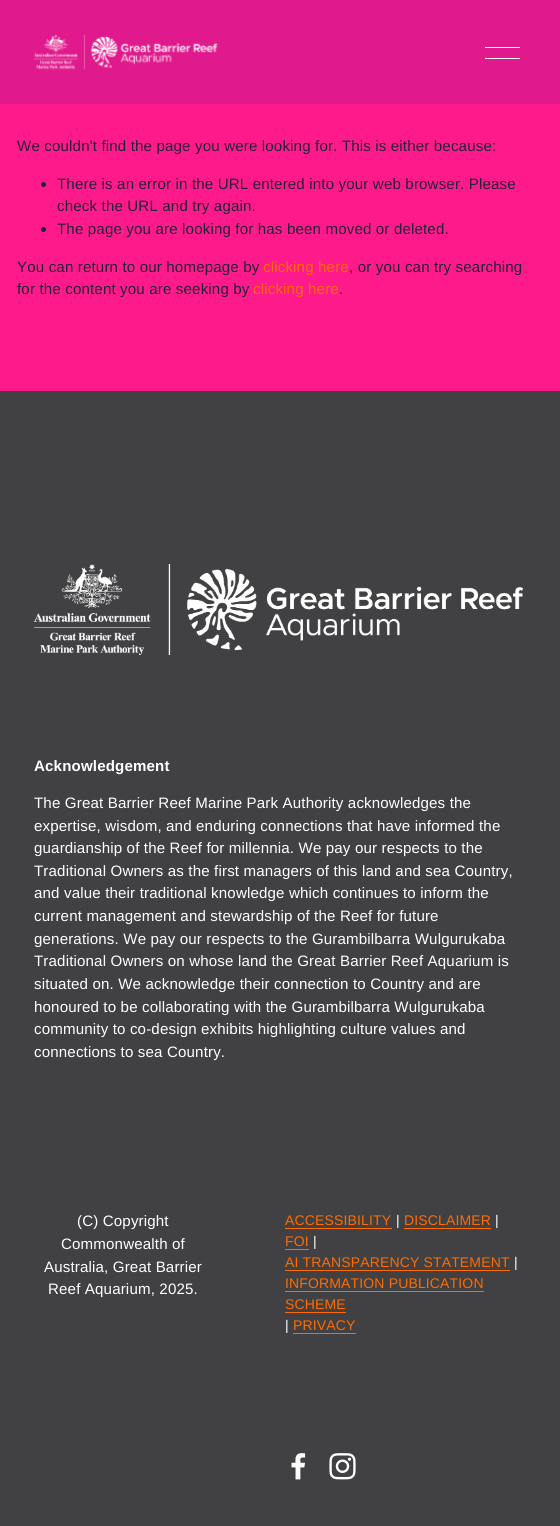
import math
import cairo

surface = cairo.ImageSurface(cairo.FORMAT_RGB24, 560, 1526)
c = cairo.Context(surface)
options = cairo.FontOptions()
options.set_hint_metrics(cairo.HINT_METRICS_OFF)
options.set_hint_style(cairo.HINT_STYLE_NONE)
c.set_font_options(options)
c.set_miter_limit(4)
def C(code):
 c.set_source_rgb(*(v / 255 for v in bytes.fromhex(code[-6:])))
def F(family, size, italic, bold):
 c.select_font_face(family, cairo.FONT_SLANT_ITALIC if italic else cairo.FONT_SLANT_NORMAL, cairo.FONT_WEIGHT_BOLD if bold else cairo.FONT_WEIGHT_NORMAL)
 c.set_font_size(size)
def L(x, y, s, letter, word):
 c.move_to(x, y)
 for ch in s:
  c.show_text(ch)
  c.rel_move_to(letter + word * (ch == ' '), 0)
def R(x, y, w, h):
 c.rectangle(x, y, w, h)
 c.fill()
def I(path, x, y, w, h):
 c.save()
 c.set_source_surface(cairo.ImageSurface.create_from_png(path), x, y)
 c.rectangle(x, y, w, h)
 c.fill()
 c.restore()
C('ff1a8c')
c.paint()
C('e01a8c')
R(0,0,560,104)
I('1.png',34,35,184,35)
C('ffffff')
R(485,47,35,1)
R(485,58,35,1)
F('Liberation Sans',15.1,0,0)
C('212138')
L(17,151,'We couldn\'t find the page you were looking for. This is either because:',.15,0)
c.new_path()
c.arc(43.5,184.5,2.5,0,2 * math.pi)
c.fill()
L(57,189,'There is an error in the URL entered into your web browser. Please',.15,0)
L(57,211,'check the URL and try again.',.15,0)
c.new_path()
c.arc(43.5,229.5,2.5,0,2 * math.pi)
c.fill()
L(57,234,'The page you are looking for has been moved or deleted.',.15,0)
L(17,272,'You can return to our homepage by',.15,0)
C('ff6b00')
L(263,272,'clicking here',.15,0)
C('212138')
L(349,272,', or you can try searching',.15,0)
L(17,294,'for the content you are seeking by',.15,0)
C('ff6b00')
L(253,294,'clicking here',.15,0)
C('212138')
L(339,294,'.',.15,0)
C('414042')
R(0,391,560,1135)
I('2.png',34,564,490,91)
F('Liberation Sans',15.1,0,1)
C('ffffff')
L(34,771,'Acknowledgement',.15,0)
F('Liberation Sans',15.1,0,0)
L(34,808,'The Great Barrier Reef Marine Park Authority acknowledges the',.15,0)
L(34,831,'expertise, wisdom, and enduring connections that have informed the',.15,0)
L(34,853,'guardianship of the Reef for millennia. We pay our respects to the',.15,0)
L(34,876,'Traditional Owners as the first managers of this land and sea Country,',.15,0)
L(34,898,'and value their traditional knowledge which continues to inform the',.15,0)
L(34,921,'current management and stewardship of the Reef for future',.15,0)
L(34,944,'generations. We pay our respects to the Gurambilbarra Wulgurukaba',.15,0)
L(34,966,'Traditional Owners on whose land the Great Barrier Reef Aquarium is',.15,0)
L(34,989,'situated on. We acknowledge their connection to Country and are',.15,0)
L(34,1012,'honoured to be collaborating with the Gurambilbarra Wulgurukaba',.15,0)
L(34,1034,'community to co-design exhibits highlighting culture values and',.15,0)
L(34,1057,'connections to sea Country.',.15,0)
L(77,1226,'(C) Copyright',.15,0)
L(61,1249,'Commonwealth of',.15,0)
L(44,1272,'Australia, Great Barrier',.15,0)
L(48,1294,'Reef Aquarium, 2025.',.15,0)
F('Liberation Sans',14,0,0)
C('ff6b00')
L(285,1225,'ACCESSIBILITY',.15,0)
R(285,1228,107,1)
C('ffffff')
L(396,1225,'|',.15,0)
C('ff6b00')
L(404,1225,'DISCLAIMER',.15,0)
R(404,1228,87,1)
C('ffffff')
L(495,1225,'|',.15,0)
C('ff6b00')
L(285,1246,'FOI',.15,0)
R(285,1249,24,1)
C('ffffff')
L(313,1246,'|',.15,0)
C('ff6b00')
L(285,1267,'AI TRANSPARENCY STATEMENT',.15,0)
R(285,1270,225,1)
C('ffffff')
L(514,1267,'|',.15,0)
C('ff6b00')
L(285,1288,'INFORMATION PUBLICATION',.15,0)
R(285,1291,199,1)
L(285,1309,'SCHEME',.15,0)
R(285,1312,61,1)
C('ffffff')
L(285,1330,'|',.15,0)
C('ff6b00')
L(293,1330,'PRIVACY',.15,0)
R(293,1333,63,1)
I('3.png',291,1453,15,27)
I('4.png',329,1453,27,27)
surface.write_to_png('o.png')
